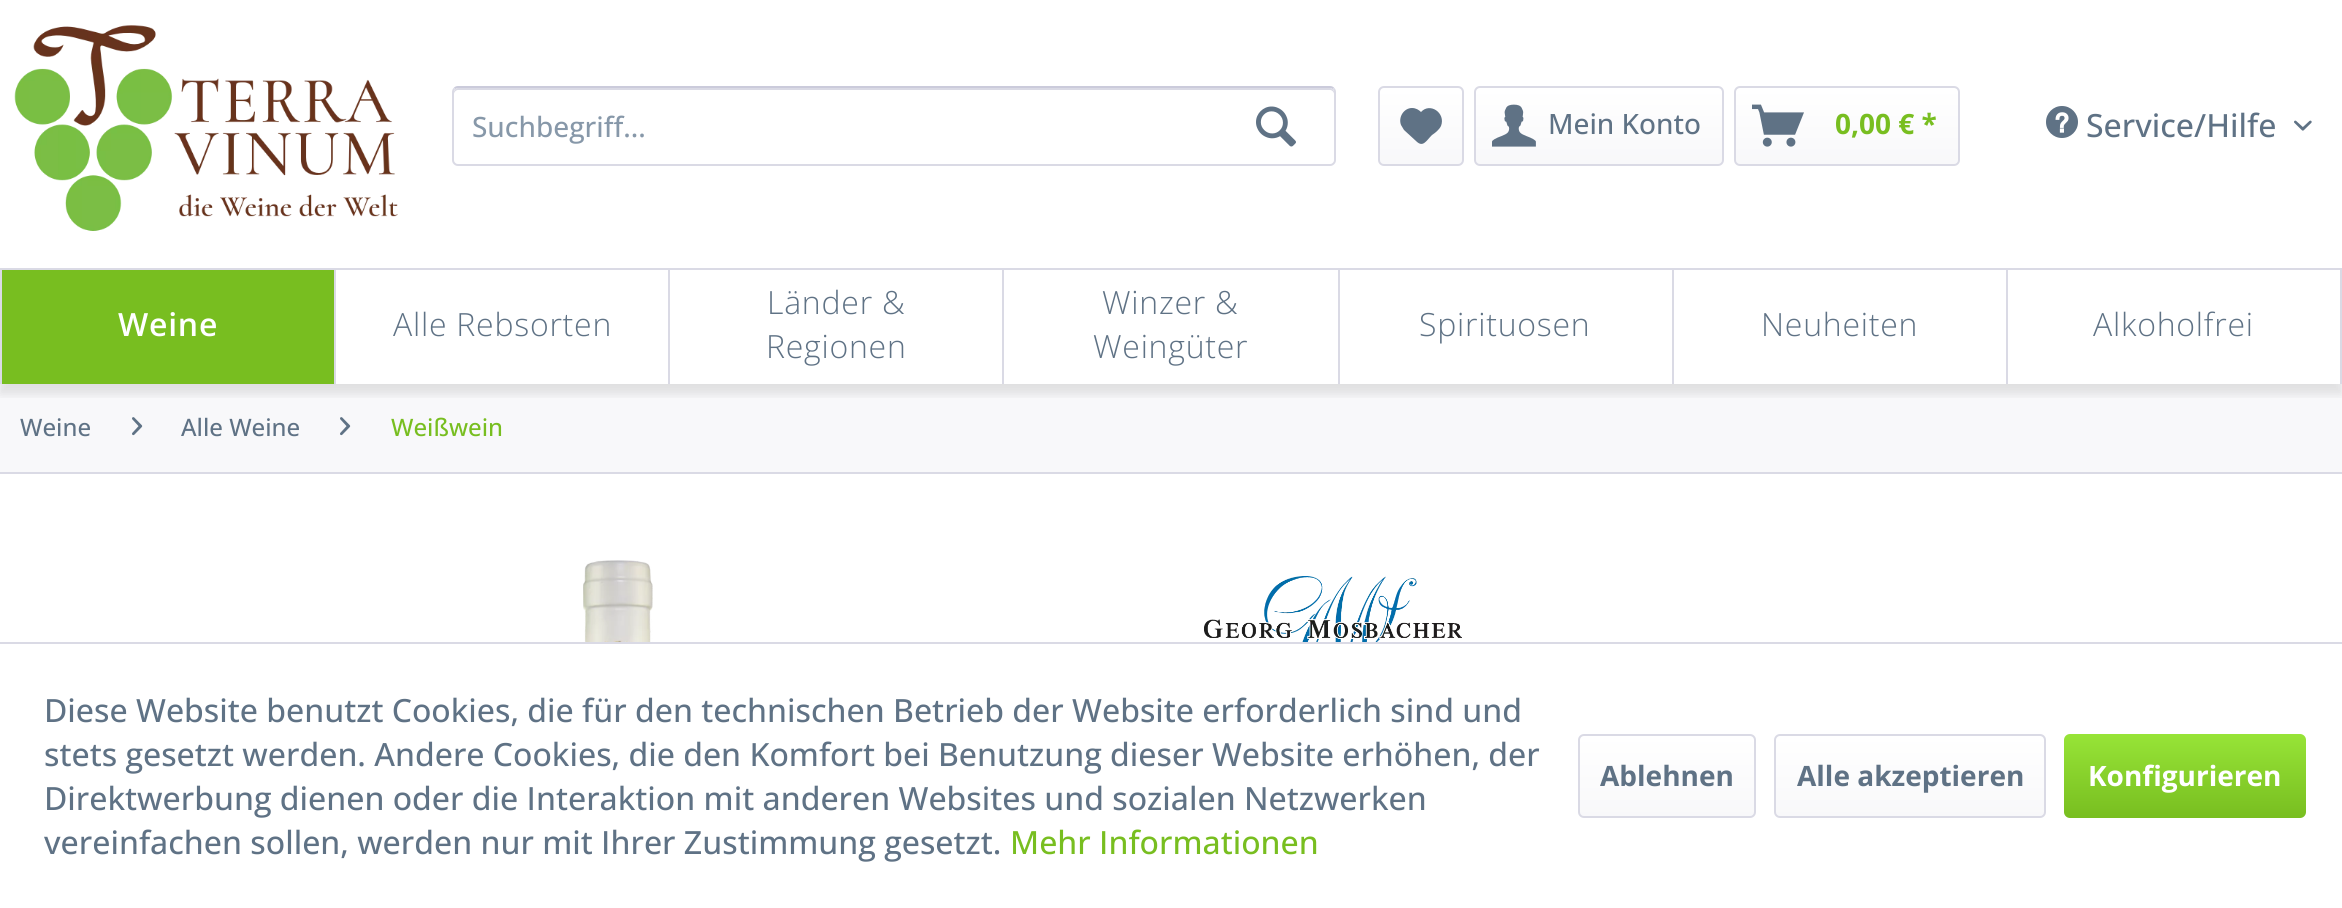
import math
import cairo

surface = cairo.ImageSurface(cairo.FORMAT_RGB24, 2342, 908)
c = cairo.Context(surface)
options = cairo.FontOptions()
options.set_hint_metrics(cairo.HINT_METRICS_OFF)
options.set_hint_style(cairo.HINT_STYLE_NONE)
c.set_font_options(options)
c.set_miter_limit(4)
def C(code):
 c.set_source_rgb(*(v / 255 for v in bytes.fromhex(code[-6:])))
def F(family, size, italic, bold):
 c.select_font_face(family, cairo.FONT_SLANT_ITALIC if italic else cairo.FONT_SLANT_NORMAL, cairo.FONT_WEIGHT_BOLD if bold else cairo.FONT_WEIGHT_NORMAL)
 c.set_font_size(size)
def T(x, y, s):
 c.move_to(x, y)
 c.show_text(s)
def L(x, y, s, letter, word):
 c.move_to(x, y)
 for ch in s:
  c.show_text(ch)
  c.rel_move_to(letter + word * (ch == ' '), 0)
def R(x, y, w, h):
 c.rectangle(x, y, w, h)
 c.fill()
def Q(x, y, w, h, r):
 c.new_sub_path()
 for i, (u, v) in enumerate([(x + w - r, y + h - r), (x + r, y + h - r), (x + r, y + r), (x + w - r, y + r)]):
  c.arc(u, v, r, i * math.pi / 2, (i + 1) * math.pi / 2)
 c.close_path()
def S(x, y, w, h, r, blur, alpha):
 c.push_group_with_content(cairo.CONTENT_ALPHA)
 c.set_operator(cairo.OPERATOR_SOURCE)
 for i in range(15, -16, -2):
  e = blur * i / 6
  if min(w, h) + 2 * e > 0:
   c.set_source_rgba(0, 0, 0, alpha * math.erfc((i - 1) / 8.5) / 2)
   Q(x - e, y - e, w + 2 * e, h + 2 * e, max(0, min(r + e + blur * .6, min(w, h) / 2 + e)))
   c.fill()
 c.mask(c.pop_group())
def I(path, x, y, w, h):
 c.save()
 c.set_source_surface(cairo.ImageSurface.create_from_png(path), x, y)
 c.rectangle(x, y, w, h)
 c.fill()
 c.restore()
C('ffffff')
c.paint()
I('1.png',14,25,384,206)
C('dadae5')
c.new_path()
c.move_to(458,90)
c.line_to(1330,90)
c.curve_to(1332,90,1334,92,1334,94)
c.line_to(1334,92)
c.curve_to(1334,90,1332,88,1330,88)
c.line_to(458,88)
c.curve_to(456,88,454,90,454,92)
c.line_to(454,94)
c.curve_to(454,92,456,90,458,90)
c.close_path()
c.fill()
c.new_path()
c.move_to(454.5,88.5)
c.curve_to(455.5,87.5,456.5,87,458,87)
c.line_to(1330,87)
c.curve_to(1331.5,87,1332.5,87.5,1333.5,88.5)
C('cbcbdb')
c.stroke()
c.new_path()
c.move_to(1333.5,88.5)
c.curve_to(1334.5,89.5,1335,90.5,1335,92)
c.line_to(1335,160)
c.curve_to(1335,161.5,1334.5,162.5,1333.5,163.5)
c.curve_to(1332.5,164.5,1331.5,165,1330,165)
c.line_to(458,165)
c.curve_to(456.5,165,455.5,164.5,454.5,163.5)
c.curve_to(453.5,162.5,453,161.5,453,160)
c.line_to(453,92)
c.curve_to(453,90.5,453.5,89.5,454.5,88.5)
C('dadae5')
c.stroke()
F('Open Sans Medium',28,0,0)
C('8798a9')
T(472,137,'Suchbegriff...')
I('2.png',1256,106,40,41)
gradient = cairo.LinearGradient(1421,88,1421,164)
gradient.add_color_stop_rgba(0,1,1,1,1)
gradient.add_color_stop_rgba(1,0.973,0.973,0.98,1)
c.set_source(gradient)
Q(1380,88,82,76,4)
c.fill()
Q(1379,87,84,78,5)
C('dadae5')
c.stroke()
C('5f7285')
c.new_path()
c.move_to(1412,108)
c.curve_to(1404,108,1398,117,1401,125)
c.line_to(1404,130)
c.line_to(1416,141)
c.curve_to(1423,148,1426,141,1432,135)
c.curve_to(1435,133,1439,130,1441,126)
c.curve_to(1446,113,1430,102,1421,112)
c.curve_to(1419,110,1416,108,1412,108)
c.close_path()
c.fill()
gradient = cairo.LinearGradient(1599,88,1599,164)
gradient.add_color_stop_rgba(0,1,1,1,1)
gradient.add_color_stop_rgba(1,0.973,0.973,0.98,1)
c.set_source(gradient)
Q(1476,88,246,76,4)
c.fill()
Q(1475,87,248,78,5)
C('dadae5')
c.stroke()
I('3.png',1492,104,44,43)
C('5f7285')
T(1548,134,'Mein Konto')
gradient = cairo.LinearGradient(1847,88,1847,164)
gradient.add_color_stop_rgba(0,1,1,1,1)
gradient.add_color_stop_rgba(1,0.973,0.973,0.98,1)
c.set_source(gradient)
Q(1736,88,222,76,4)
c.fill()
Q(1735,87,224,78,5)
C('dadae5')
c.stroke()
I('4.png',1752,104,52,43)
F('Open Sans',28,0,1)
C('78be20')
T(1835,134,'0,00 € *')
I('5.png',2046,106,32,32)
F('Open Sans Medium',32,0,0)
C('5f7285')
T(2086,137,'Service/Hilfe')
I('6.png',2294,120,18,11)
C('f8f8fa')
R(0,384,2342,88)
c.save()
c.rectangle(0,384,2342,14)
c.clip()
C('000000')
S(0,278,2342,116,0,5,.1)
c.restore()
C('dadae5')
R(0,268,2342,2)
R(2340,270,2,114)
R(0,270,2,114)
R(334,270,2,114)
C('78be20')
R(2,270,332,114)
F('Open Sans SemiBold',32,0,0)
C('ffffff')
L(118,336,'Weine',.75,0)
C('dadae5')
R(668,270,2,114)
F('Open Sans Light',32,0,0)
C('5f7285')
L(393,336,'Alle Rebsorten',.75,0)
C('dadae5')
R(1002,270,2,114)
C('5f7285')
L(767,314,'Länder &',.75,0)
L(766,358,'Regionen',.75,0)
C('dadae5')
R(1338,270,2,114)
C('5f7285')
L(1102,314,'Winzer &',.75,0)
L(1093,358,'Weingüter',.75,0)
C('dadae5')
R(1672,270,2,114)
C('5f7285')
L(1419,336,'Spirituosen',.75,0)
C('dadae5')
R(2006,270,2,114)
C('5f7285')
L(1761,336,'Neuheiten',.75,0)
L(2093,336,'Alkoholfrei',.75,0)
C('dadae5')
R(0,472,2342,2)
F('Open Sans Medium',24,0,0)
C('5f7285')
T(20,436,'Weine')
I('7.png',132,417,11,19)
T(181,436,'Alle Weine')
I('7.png',340,417,11,19)
C('78be20')
T(391,436,'Weißwein')
I('8.png',583,560,70,82)
I('9.png',1204,576,258,66)
C('dadae5')
R(0,642,2342,2)
F('Open Sans Medium',32,0,0)
C('5f7285')
T(44,722,'Diese Website benutzt Cookies, die für den technischen Betrieb der Website erforderlich sind und')
T(44,766,'stets gesetzt werden. Andere Cookies, die den Komfort bei Benutzung dieser Website erhöhen, der')
T(44,810,'Direktwerbung dienen oder die Interaktion mit anderen Websites und sozialen Netzwerken')
T(44,854,'vereinfachen sollen, werden nur mit Ihrer Zustimmung gesetzt.')
C('78be20')
T(1010,854,'Mehr Informationen')
gradient = cairo.LinearGradient(1667,736,1667,816)
gradient.add_color_stop_rgba(0,1,1,1,1)
gradient.add_color_stop_rgba(1,0.973,0.973,0.98,1)
c.set_source(gradient)
Q(1580,736,174,80,4)
c.fill()
Q(1579,735,176,82,5)
C('dadae5')
c.stroke()
F('Open Sans',28,0,1)
C('5f7285')
T(1600,786,'Ablehnen')
gradient = cairo.LinearGradient(1910,736,1910,816)
gradient.add_color_stop_rgba(0,1,1,1,1)
gradient.add_color_stop_rgba(1,0.973,0.973,0.98,1)
c.set_source(gradient)
Q(1776,736,268,80,4)
c.fill()
Q(1775,735,270,82,5)
C('dadae5')
c.stroke()
C('5f7285')
T(1797,786,'Alle akzeptieren')
gradient = cairo.LinearGradient(2185,734,2185,818)
gradient.add_color_stop_rgba(0,0.592,0.894,0.216,1)
gradient.add_color_stop_rgba(1,0.471,0.745,0.125,1)
c.set_source(gradient)
Q(2064,734,242,84,6)
c.fill()
C('ffffff')
T(2088,786,'Konfigurieren')
surface.write_to_png('o.png')
